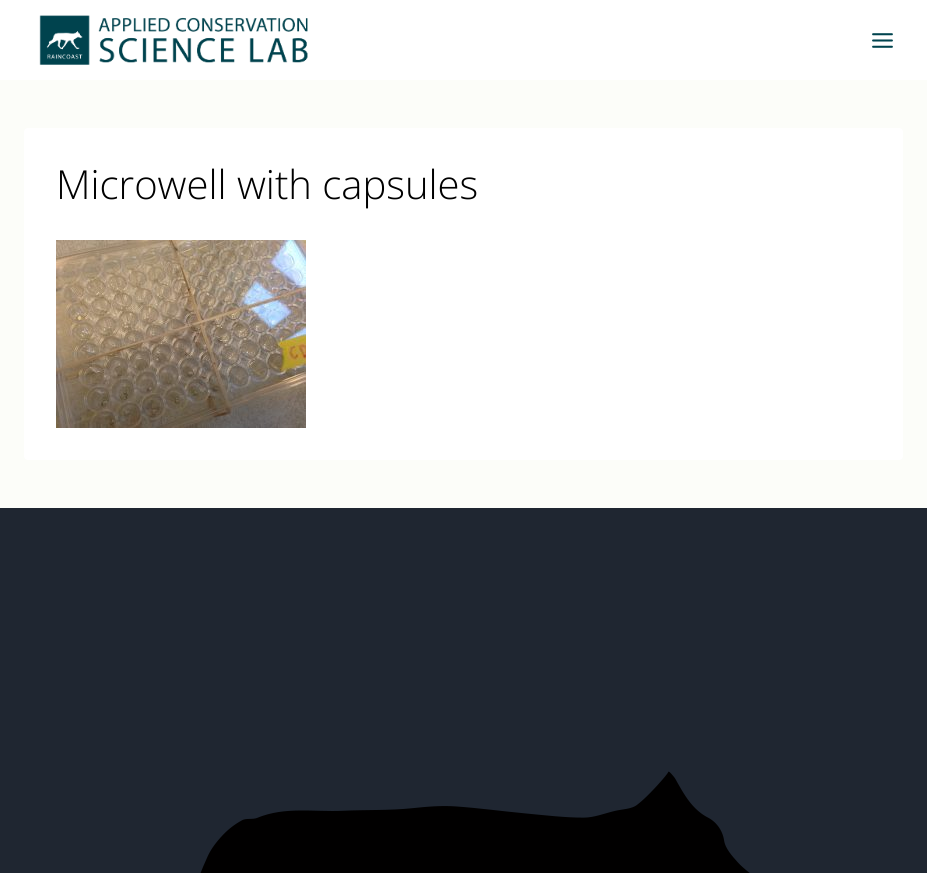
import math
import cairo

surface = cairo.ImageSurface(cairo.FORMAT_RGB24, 927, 873)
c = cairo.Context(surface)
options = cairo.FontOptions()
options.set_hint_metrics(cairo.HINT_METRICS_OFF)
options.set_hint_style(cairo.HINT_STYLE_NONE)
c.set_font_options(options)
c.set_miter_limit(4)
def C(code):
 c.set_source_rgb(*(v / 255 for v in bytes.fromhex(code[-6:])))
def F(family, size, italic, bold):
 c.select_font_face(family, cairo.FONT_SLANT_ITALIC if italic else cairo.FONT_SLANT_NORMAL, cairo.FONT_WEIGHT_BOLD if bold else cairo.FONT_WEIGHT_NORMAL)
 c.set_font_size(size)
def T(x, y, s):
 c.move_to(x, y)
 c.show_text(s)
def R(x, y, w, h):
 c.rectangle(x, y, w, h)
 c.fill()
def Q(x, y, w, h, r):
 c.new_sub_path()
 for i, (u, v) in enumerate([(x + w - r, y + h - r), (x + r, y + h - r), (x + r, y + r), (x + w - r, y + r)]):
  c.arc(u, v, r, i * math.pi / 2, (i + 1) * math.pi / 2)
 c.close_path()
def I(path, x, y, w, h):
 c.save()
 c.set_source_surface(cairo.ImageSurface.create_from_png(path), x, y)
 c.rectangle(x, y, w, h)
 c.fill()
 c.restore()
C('fcfdf9')
c.paint()
C('ffffff')
R(0,0,927,80)
I('1.png',39,15,269,50)
I('2.png',872,33,21,15)
Q(24,128,879,332,4)
c.fill()
F('Open Sans Light',40,0,0)
C('000000')
T(56,199,'Microwell with capsules')
I('3.png',56,240,250,188)
C('1f2631')
R(0,508,927,365)
I('4.png',200,771,550,102)
surface.write_to_png('o.png')
